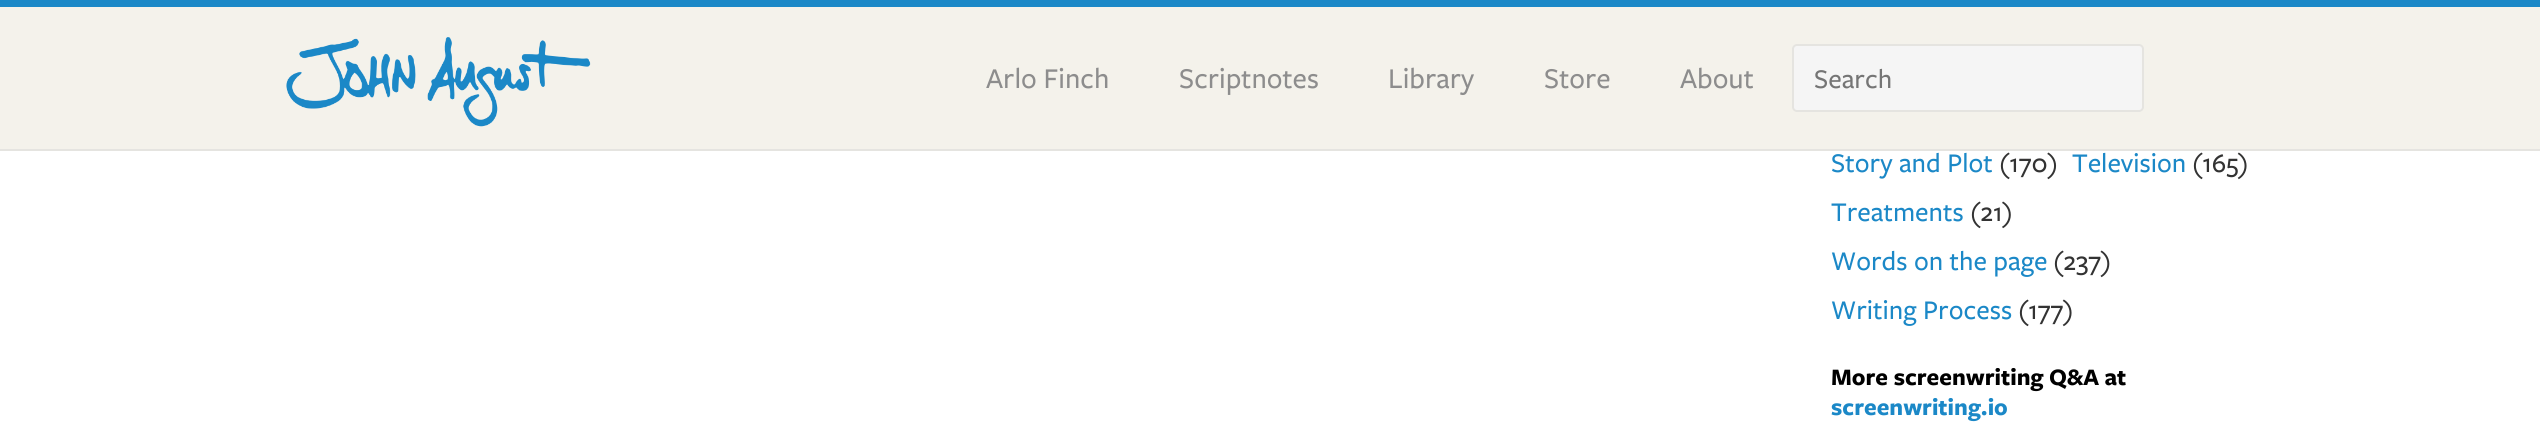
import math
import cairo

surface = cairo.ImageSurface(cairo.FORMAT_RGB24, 2540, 439)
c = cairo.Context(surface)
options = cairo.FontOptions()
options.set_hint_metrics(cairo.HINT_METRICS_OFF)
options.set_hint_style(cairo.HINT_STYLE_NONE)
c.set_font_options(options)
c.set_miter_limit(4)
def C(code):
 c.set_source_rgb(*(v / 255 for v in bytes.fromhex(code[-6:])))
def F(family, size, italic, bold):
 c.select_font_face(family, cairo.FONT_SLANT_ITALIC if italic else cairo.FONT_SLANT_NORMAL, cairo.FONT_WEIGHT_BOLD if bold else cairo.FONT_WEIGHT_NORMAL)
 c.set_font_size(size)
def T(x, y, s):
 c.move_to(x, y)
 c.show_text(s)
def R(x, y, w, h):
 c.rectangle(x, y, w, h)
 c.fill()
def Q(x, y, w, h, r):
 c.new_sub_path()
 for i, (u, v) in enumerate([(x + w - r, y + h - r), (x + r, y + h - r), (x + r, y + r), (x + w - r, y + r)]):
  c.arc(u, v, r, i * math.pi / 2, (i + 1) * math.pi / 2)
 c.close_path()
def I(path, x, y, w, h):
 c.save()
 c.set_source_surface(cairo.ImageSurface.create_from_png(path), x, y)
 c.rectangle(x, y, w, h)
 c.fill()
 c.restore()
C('ffffff')
c.paint()
C('f4f2eb')
R(0,7,2540,142)
C('1b88c7')
R(0,0,2540,7)
C('e5e4e0')
R(0,149,2540,2)
I('1.png',286,37,305,90)
F('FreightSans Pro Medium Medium',29.75,0,0)
C('8d8d8d')
T(986,88,'Arlo Finch')
T(1179,88,'Scriptnotes')
T(1388,88,'Library')
T(1544,88,'Store')
T(1680,88,'About')
C('f5f5f5')
Q(1793,45,350,66,4)
c.fill_preserve()
C('e5e4e0')
c.stroke()
F('FreightSans Pro Medium Medium',28,0,0)
C('757575')
T(1814,88,'Search')
C('1b88c7')
T(1831,172,'Story and Plot')
C('333333')
T(1999,172,'(170)')
C('1b88c7')
T(2072,172,'Television')
C('333333')
T(2192,172,'(165)')
C('1b88c7')
T(1831,221,'Treatments')
C('333333')
T(1970,221,'(21)')
C('1b88c7')
T(1831,270,'Words on the page')
C('333333')
T(2053,270,'(237)')
C('1b88c7')
T(1831,319,'Writing Process')
C('333333')
T(2018,319,'(177)')
F('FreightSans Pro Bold',24.5,0,1)
C('000000')
T(1831,385,'More screenwriting Q&A at')
C('1b88c7')
T(1831,415,'screenwriting.io')
surface.write_to_png('o.png')
